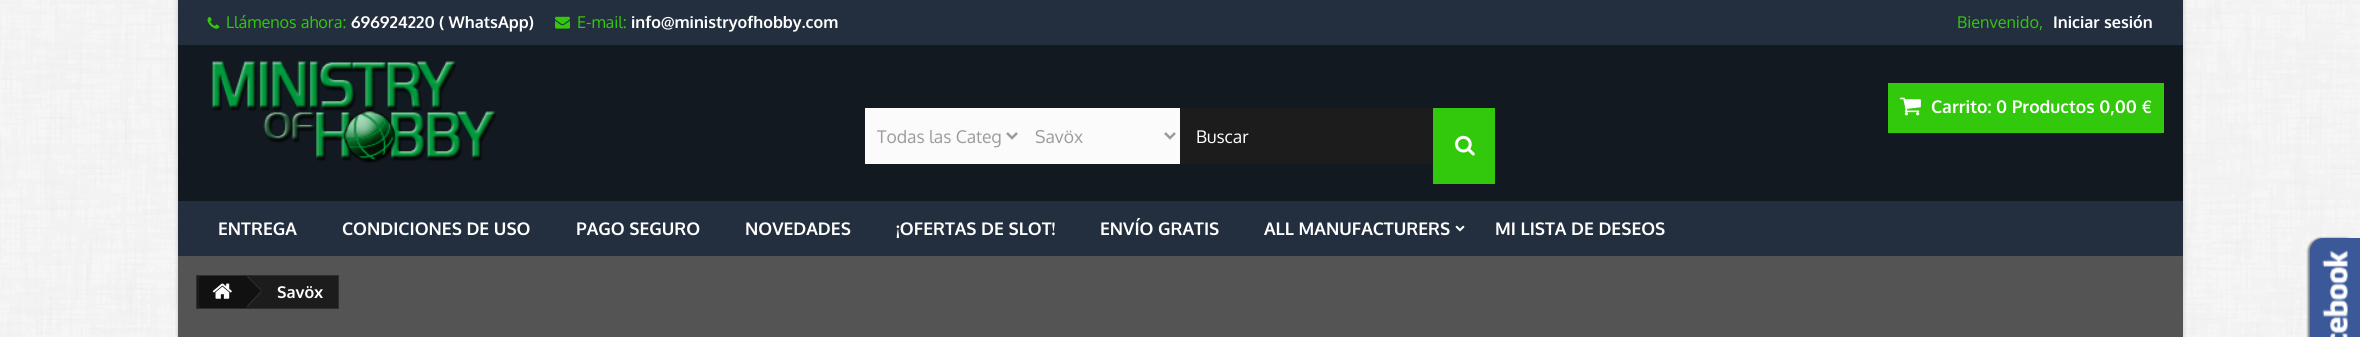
import math
import cairo

surface = cairo.ImageSurface(cairo.FORMAT_RGB24, 2360, 337)
c = cairo.Context(surface)
options = cairo.FontOptions()
options.set_hint_metrics(cairo.HINT_METRICS_OFF)
options.set_hint_style(cairo.HINT_STYLE_NONE)
c.set_font_options(options)
c.set_miter_limit(4)
def C(code):
 c.set_source_rgb(*(v / 255 for v in bytes.fromhex(code[-6:])))
def F(family, size, italic, bold):
 c.select_font_face(family, cairo.FONT_SLANT_ITALIC if italic else cairo.FONT_SLANT_NORMAL, cairo.FONT_WEIGHT_BOLD if bold else cairo.FONT_WEIGHT_NORMAL)
 c.set_font_size(size)
def T(x, y, s):
 c.move_to(x, y)
 c.show_text(s)
def R(x, y, w, h):
 c.rectangle(x, y, w, h)
 c.fill()
def Q(x, y, w, h, r):
 c.new_sub_path()
 for i, (u, v) in enumerate([(x + w - r, y + h - r), (x + r, y + h - r), (x + r, y + r), (x + w - r, y + r)]):
  c.arc(u, v, r, i * math.pi / 2, (i + 1) * math.pi / 2)
 c.close_path()
def S(x, y, w, h, r, blur, alpha):
 c.push_group_with_content(cairo.CONTENT_ALPHA)
 c.set_operator(cairo.OPERATOR_SOURCE)
 for i in range(15, -16, -2):
  e = blur * i / 6
  if min(w, h) + 2 * e > 0:
   c.set_source_rgba(0, 0, 0, alpha * math.erfc((i - 1) / 8.5) / 2)
   Q(x - e, y - e, w + 2 * e, h + 2 * e, max(0, min(r + e + blur * .6, min(w, h) / 2 + e)))
   c.fill()
 c.mask(c.pop_group())
def I(path, x, y, w, h):
 c.save()
 c.set_source_surface(cairo.ImageSurface.create_from_png(path), x, y)
 c.rectangle(x, y, w, h)
 c.fill()
 c.restore()
C('ffffff')
c.paint()
I('1.png',0,0,2360,337)
C('000000')
S(178,0,2005,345,0,2.5,.2)
C('545454')
R(178,256,2005,81)
C('121921')
R(178,45,2005,156)
C('232f3f')
R(178,0,2005,45)
I('2.png',207,17,13,12)
F('Oxygen',16.25,0,0)
C('32c90c')
T(226,28,'Llámenos ahora:')
F('Oxygen',16.25,0,1)
C('ffffff')
T(351,28,'696924220 ( WhatsApp)')
I('3.png',555,16,15,13)
F('Oxygen',16.25,0,0)
C('32c90c')
T(577,28,'E-mail:')
F('Oxygen',16.25,0,1)
C('ffffff')
T(631,28,'info@ministryofhobby.com')
F('Oxygen',16.25,0,0)
C('32c90c')
T(1957,28,'Bienvenido,')
F('Oxygen',16.25,0,1)
C('ffffff')
T(2053,28,'Iniciar sesión')
I('4.png',212,61,285,102)
C('32c90c')
R(1888,83,276,50)
I('5.png',1900,97,21,19)
F('Oxygen',17.5,0,1)
C('ffffff')
T(1931,113,'Carrito: 0 Productos 0,00 €')
C('fbfbfb')
R(865,108,315,56)
c.new_path()
c.move_to(1007,133)
c.line_to(1012,138)
c.line_to(1017,133)
C('9c9b9b')
c.set_line_width(2.5)
c.stroke()
F('Oxygen',17.5,0,0)
T(877,143,'Todas las Categ')
c.new_path()
c.move_to(1165,133)
c.line_to(1170,138)
c.line_to(1175,133)
c.stroke()
T(1035,143,'Savöx')
C('1c1c1c')
R(1180,108,253,56)
C('ffffff')
T(1196,143,'Buscar')
C('32c90c')
R(1433,108,62,76)
I('6.png',1455,135,20,21)
C('232f3f')
R(178,201,2005,55)
F('Oxygen',17.5,0,1)
C('ffffff')
T(218,235,'ENTREGA')
T(342,235,'CONDICIONES DE USO')
T(576,235,'PAGO SEGURO')
T(745,235,'NOVEDADES')
T(896,235,'¡OFERTAS DE SLOT!')
T(1100,235,'ENVÍO GRATIS')
T(1264,235,'ALL MANUFACTURERS')
I('7.png',1455,225,10,7)
T(1495,235,'MI LISTA DE DESEOS')
C('1c1c1c')
c.rectangle(196.5,275.5,142,33)
c.fill_preserve()
C('2d2d2d')
c.set_line_width(1)
c.stroke()
C('111111')
c.new_path()
c.move_to(203,276)
c.line_to(246,276)
c.line_to(246,308)
c.line_to(203,308)
c.curve_to(201,308,199,306,199,304)
c.line_to(199,280)
c.curve_to(199,278,201,276,203,276)
c.close_path()
c.fill()
I('8.png',212,283,20,16)
c.new_path()
c.move_to(249,277)
c.line_to(261,289.5)
c.curve_to(262,290.5,262,292,261,293)
c.line_to(249,305.5)
c.curve_to(248,306.5,246,306.5,245,305.5)
c.line_to(233,293)
c.curve_to(232,292,232,290.5,233,289.5)
c.line_to(245,277)
c.curve_to(246,276,248,276,249,277)
c.close_path()
c.fill()
C('2d2d2d')
c.new_path()
c.move_to(248,276)
c.line_to(262,290.5)
c.line_to(261,291)
c.line_to(247,277)
c.close_path()
c.move_to(261,291)
c.line_to(262,292)
c.line_to(248,306.5)
c.line_to(247,305.5)
c.close_path()
c.fill()
F('Oxygen',16.25,0,1)
C('ffffff')
T(277,298,'Savöx')
C('000000')
S(2308,238,50,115,13,1,.5)
C('3b5998')
c.new_path()
c.move_to(2323,238)
c.line_to(2360,238)
c.line_to(2360,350)
c.line_to(2323,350)
c.curve_to(2316,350,2310,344,2310,337)
c.line_to(2310,251)
c.curve_to(2310,244,2316,238,2323,238)
c.close_path()
c.fill()
I('9.png',2322,250,26,87)
surface.write_to_png('o.png')
